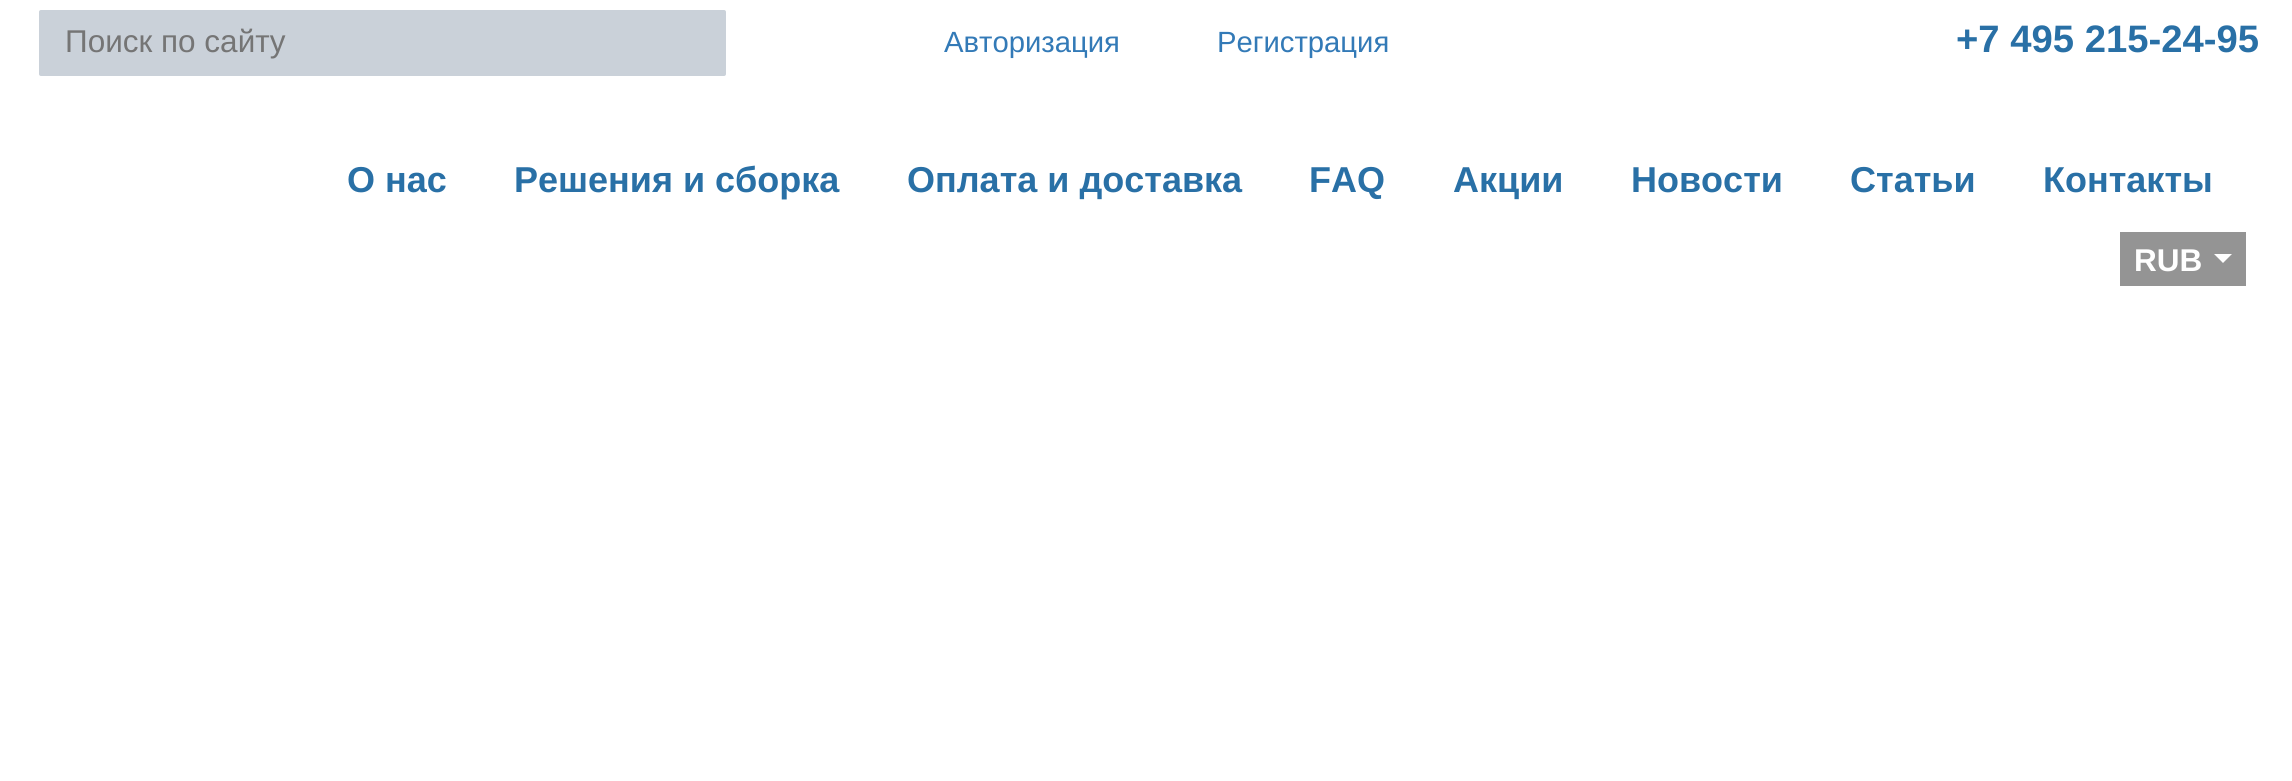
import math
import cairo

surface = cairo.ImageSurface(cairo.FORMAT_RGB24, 2292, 781)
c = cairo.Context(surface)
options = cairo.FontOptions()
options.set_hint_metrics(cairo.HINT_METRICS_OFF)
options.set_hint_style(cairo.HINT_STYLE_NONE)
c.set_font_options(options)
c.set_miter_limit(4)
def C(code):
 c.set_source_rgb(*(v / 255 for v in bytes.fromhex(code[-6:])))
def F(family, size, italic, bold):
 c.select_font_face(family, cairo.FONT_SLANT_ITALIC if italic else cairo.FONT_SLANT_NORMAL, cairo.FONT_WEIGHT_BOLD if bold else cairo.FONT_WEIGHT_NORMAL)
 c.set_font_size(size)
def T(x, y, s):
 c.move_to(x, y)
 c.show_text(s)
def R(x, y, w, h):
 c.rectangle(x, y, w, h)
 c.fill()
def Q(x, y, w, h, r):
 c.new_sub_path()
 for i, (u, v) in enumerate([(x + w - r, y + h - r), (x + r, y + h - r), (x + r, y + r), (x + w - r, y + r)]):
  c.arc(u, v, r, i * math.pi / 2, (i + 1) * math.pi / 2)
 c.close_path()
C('ffffff')
c.paint()
C('cad1d9')
Q(36.5,7.5,692,71,4.5)
c.fill_preserve()
C('ffffff')
c.set_line_width(5)
c.stroke()
F('Liberation Sans',31.5,0,0)
C('757575')
T(65,52,'Поиск по сайту')
F('Liberation Sans',29.25,0,0)
C('337ab7')
T(944,52,'Авторизация')
T(1217,52,'Регистрация')
F('Liberation Sans',38.25,0,1)
C('2970a6')
T(1956,52,'+7 495 215-24-95')
F('Liberation Sans',36,0,1)
T(347,192,'О нас')
T(514,192,'Решения и сборка')
T(907,192,'Оплата и доставка')
T(1309,192,'FAQ')
T(1453,192,'Акции')
T(1631,192,'Новости')
T(1850,192,'Статьи')
T(2043,192,'Контакты')
C('949494')
R(2120,232,126,54)
F('Liberation Sans',31.5,0,1)
C('ffffff')
T(2134,271,'RUB')
c.new_path()
c.move_to(2214,254)
c.line_to(2232,254)
c.line_to(2223,263)
c.close_path()
c.fill()
surface.write_to_png('o.png')
